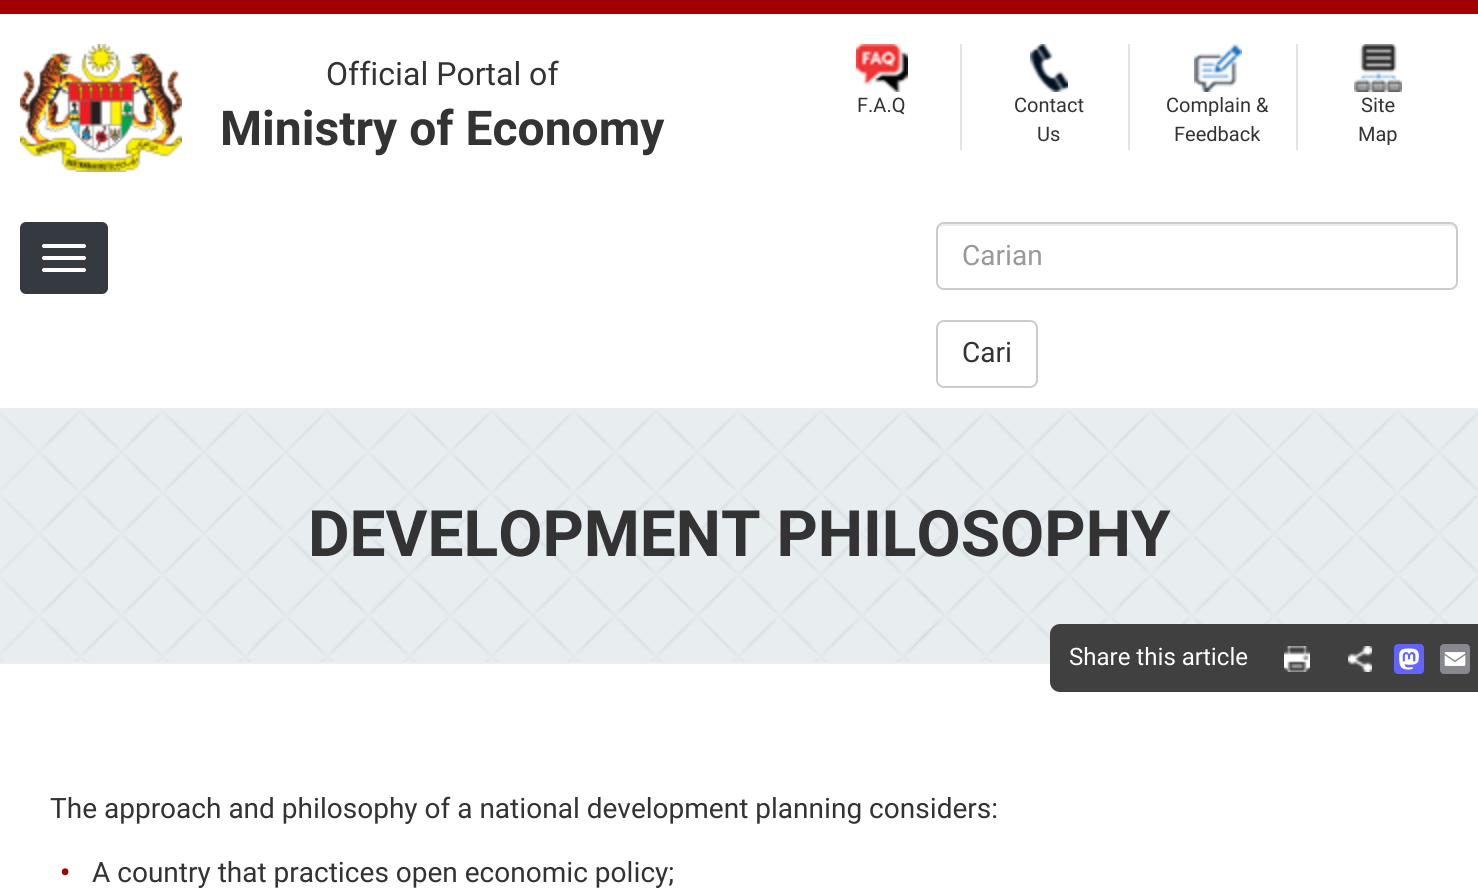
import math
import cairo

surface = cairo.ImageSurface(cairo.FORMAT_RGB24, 1478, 888)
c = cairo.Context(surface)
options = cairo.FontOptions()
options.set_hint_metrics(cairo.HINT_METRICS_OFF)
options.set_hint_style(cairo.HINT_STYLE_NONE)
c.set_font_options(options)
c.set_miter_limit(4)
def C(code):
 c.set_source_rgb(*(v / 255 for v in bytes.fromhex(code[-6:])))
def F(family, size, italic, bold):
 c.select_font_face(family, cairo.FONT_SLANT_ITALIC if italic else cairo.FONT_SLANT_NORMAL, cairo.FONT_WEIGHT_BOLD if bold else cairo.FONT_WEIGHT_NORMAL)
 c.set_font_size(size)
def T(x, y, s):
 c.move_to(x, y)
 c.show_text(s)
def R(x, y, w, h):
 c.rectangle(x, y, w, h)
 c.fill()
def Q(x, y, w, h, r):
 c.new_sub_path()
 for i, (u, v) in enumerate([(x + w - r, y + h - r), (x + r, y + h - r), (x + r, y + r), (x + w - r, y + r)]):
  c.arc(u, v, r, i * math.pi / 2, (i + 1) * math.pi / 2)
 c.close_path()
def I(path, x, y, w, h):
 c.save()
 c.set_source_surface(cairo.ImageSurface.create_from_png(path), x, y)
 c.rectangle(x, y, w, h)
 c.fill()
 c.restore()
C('ffffff')
c.paint()
C('a30000')
R(0,0,1478,14)
I('1.png',20,44,162,128)
F('Heebo',32,0,0)
C('333333')
T(326,85,'Official Portal of')
F('Heebo',48,0,1)
T(220,145,'Ministry of Economy')
C('e3e3e3')
R(960,44,2,106)
I('2.png',856,44,52,48)
F('Heebo',20,0,0)
C('333333')
T(857,112,'F.A.Q')
C('e3e3e3')
R(1128,44,2,106)
I('3.png',1030,44,38,48)
C('333333')
T(1014,112,'Contact')
T(1037,141,'Us')
C('e3e3e3')
R(1296,44,2,106)
I('4.png',1194,44,48,48)
C('333333')
T(1166,112,'Complain &')
T(1174,141,'Feedback')
I('5.png',1354,44,48,48)
T(1361,112,'Site')
T(1358,141,'Map')
C('343a40')
Q(20,222,88,72,6)
c.fill()
C('ffffff')
Q(42,244,44,4,2)
c.fill()
Q(42,256,44,4,2)
c.fill()
Q(42,268,44,4,2)
c.fill()
C('ececec')
c.new_path()
c.move_to(944,226)
c.line_to(1450,226)
c.curve_to(1453,226,1456,229,1456,232)
c.line_to(1456,230)
c.curve_to(1456,227,1453,224,1450,224)
c.line_to(944,224)
c.curve_to(941,224,938,227,938,230)
c.line_to(938,232)
c.curve_to(938,229,941,226,944,226)
c.close_path()
c.fill()
Q(937,223,520,66,7)
C('cccccc')
c.stroke()
F('Heebo',28,0,0)
C('999999')
T(962,265,'Carian')
Q(937,321,100,66,7)
C('cccccc')
c.stroke()
C('333333')
T(962,362,'Cari')
C('e8eef0')
R(0,408,1478,254)
I('6.png',0,410,1478,252)
C('eeeeee')
R(0,662,1050,2)
F('Heebo',64,0,1)
C('333333')
T(308,556,'DEVELOPMENT PHILOSOPHY')
C('404040')
c.new_path()
c.move_to(1060,624)
c.line_to(1478,624)
c.line_to(1478,692)
c.line_to(1060,692)
c.curve_to(1054.5,692,1050,687.5,1050,682)
c.line_to(1050,634)
c.curve_to(1050,628.5,1054.5,624,1060,624)
c.close_path()
c.fill()
F('Heebo',24,0,0)
C('ffffff')
T(1069,665,'Share this article')
I('7.png',1284,646,26,26)
I('8.png',1348,646,24,26)
C('6364ff')
Q(1394,644,30,30,4)
c.fill()
I('9.png',1399,648,20,22)
C('888990')
Q(1440,644,30,30,4)
c.fill()
I('10.png',1444,652,22,14)
F('Heebo',28,0,0)
C('333333')
T(50,818,'The approach and philosophy of a national development planning considers:')
F('Heebo',28,0,1)
C('a30000')
T(60,882,'•')
F('Heebo',28,0,0)
C('333333')
T(92,882,'A country that practices open economic policy;')
surface.write_to_png('o.png')
